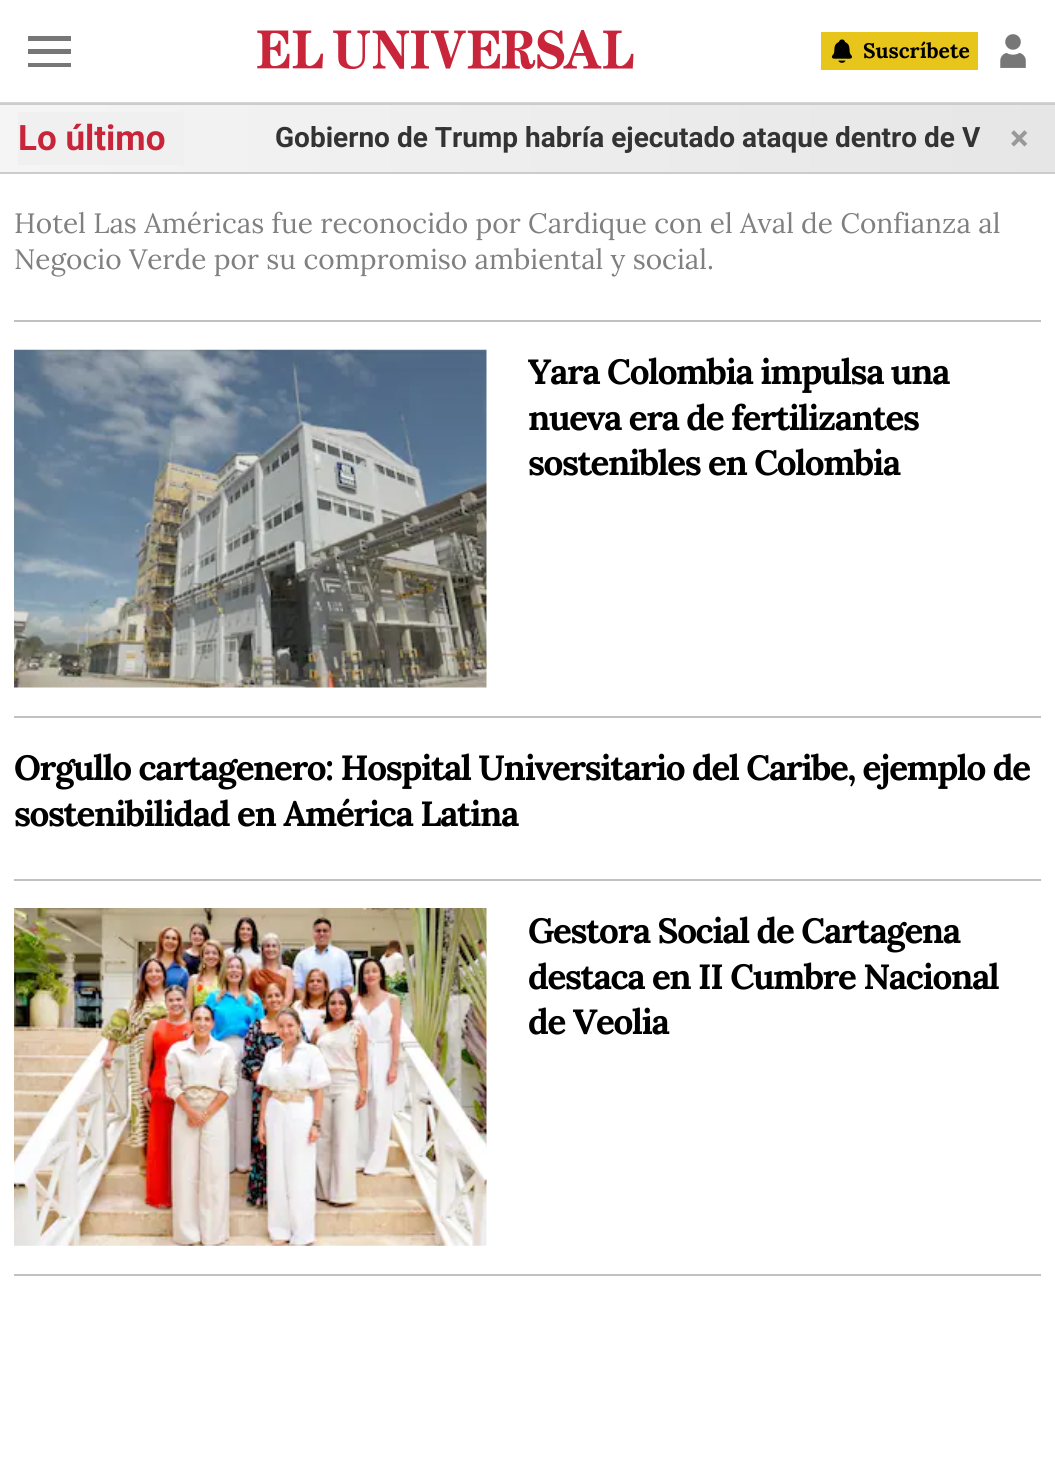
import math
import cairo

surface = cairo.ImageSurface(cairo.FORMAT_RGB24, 1055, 1474)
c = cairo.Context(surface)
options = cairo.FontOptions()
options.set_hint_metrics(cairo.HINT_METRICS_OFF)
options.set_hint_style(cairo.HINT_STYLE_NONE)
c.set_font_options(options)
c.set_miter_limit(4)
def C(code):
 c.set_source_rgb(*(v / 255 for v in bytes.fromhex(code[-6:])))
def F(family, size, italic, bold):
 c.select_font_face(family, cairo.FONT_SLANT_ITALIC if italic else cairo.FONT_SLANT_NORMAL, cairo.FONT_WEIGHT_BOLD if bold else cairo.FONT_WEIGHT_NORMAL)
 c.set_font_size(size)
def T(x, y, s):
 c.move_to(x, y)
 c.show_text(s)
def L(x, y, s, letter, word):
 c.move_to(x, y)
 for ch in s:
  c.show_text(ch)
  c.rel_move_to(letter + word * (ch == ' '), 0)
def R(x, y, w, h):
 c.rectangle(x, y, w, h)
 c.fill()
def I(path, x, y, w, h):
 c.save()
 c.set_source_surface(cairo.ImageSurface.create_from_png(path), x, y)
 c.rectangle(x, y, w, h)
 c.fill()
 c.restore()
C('ffffff')
c.paint()
C('d4d4d4')
R(0,102,1055,1)
C('777777')
R(28,36,43,5)
R(28,49,43,5)
R(28,63,43,4)
I('1.png',257,30,377,40)
C('e8c51a')
R(821,32,157,38)
I('2.png',831,39,21,24)
F('Lora',21,0,1)
C('000000')
T(863,58,'Suscríbete')
I('3.png',1000,34,26,34)
gradient = cairo.LinearGradient(0,138,1055,138)
gradient.add_color_stop_rgba(0,0.961,0.961,0.961,1)
gradient.add_color_stop_rgba(1,0.902,0.902,0.902,1)
c.set_source(gradient)
R(0,105,1055,67)
C('cccccc')
R(0,103,1055,2)
R(0,172,1055,2)
gradient = cairo.LinearGradient(-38,138,235,138)
gradient.add_color_stop_rgba(.8,0.941,0.941,0.941,1)
gradient.add_color_stop_rgba(1,0.941,0.941,0.941,0)
c.set_source(gradient)
R(18,112,166,53)
F('Roboto',35,0,1)
C('c8243a')
T(18,150,'Lo último')
F('Roboto',28,0,1)
C('333333')
T(275,147,'Gobierno de Trump habría ejecutado ataque dentro de V')
F('Roboto',35,0,1)
C('999999')
T(1010,150,'×')
C('c1c1c1')
R(14,320,1027,2)
F('Lora',28,0,0)
C('808080')
T(14,233,'Hotel Las Américas fue reconocido por Cardique con el Aval de Confianza al')
T(14,269,'Negocio Verde por su compromiso ambiental y social.')
C('c1c1c1')
R(14,716,1027,2)
I('4.png',14,349,473,339)
F('Lora',35,0,1)
C('000000')
L(528,384,'Yara Colombia impulsa una',-1.4,0)
L(528,430,'nueva era de fertilizantes',-1.4,0)
L(528,475,'sostenibles en Colombia',-1.4,0)
C('c1c1c1')
R(14,879,1027,2)
C('000000')
L(14,780,'Orgullo cartagenero: Hospital Universitario del Caribe, ejemplo de',-1.4,0)
L(14,826,'sostenibilidad en América Latina',-1.4,0)
C('c1c1c1')
R(14,1274,1027,2)
I('5.png',14,908,473,338)
C('000000')
L(528,943,'Gestora Social de Cartagena',-1.4,0)
L(528,989,'destaca en II Cumbre Nacional',-1.4,0)
L(528,1034,'de Veolia',-1.4,0)
surface.write_to_png('o.png')
